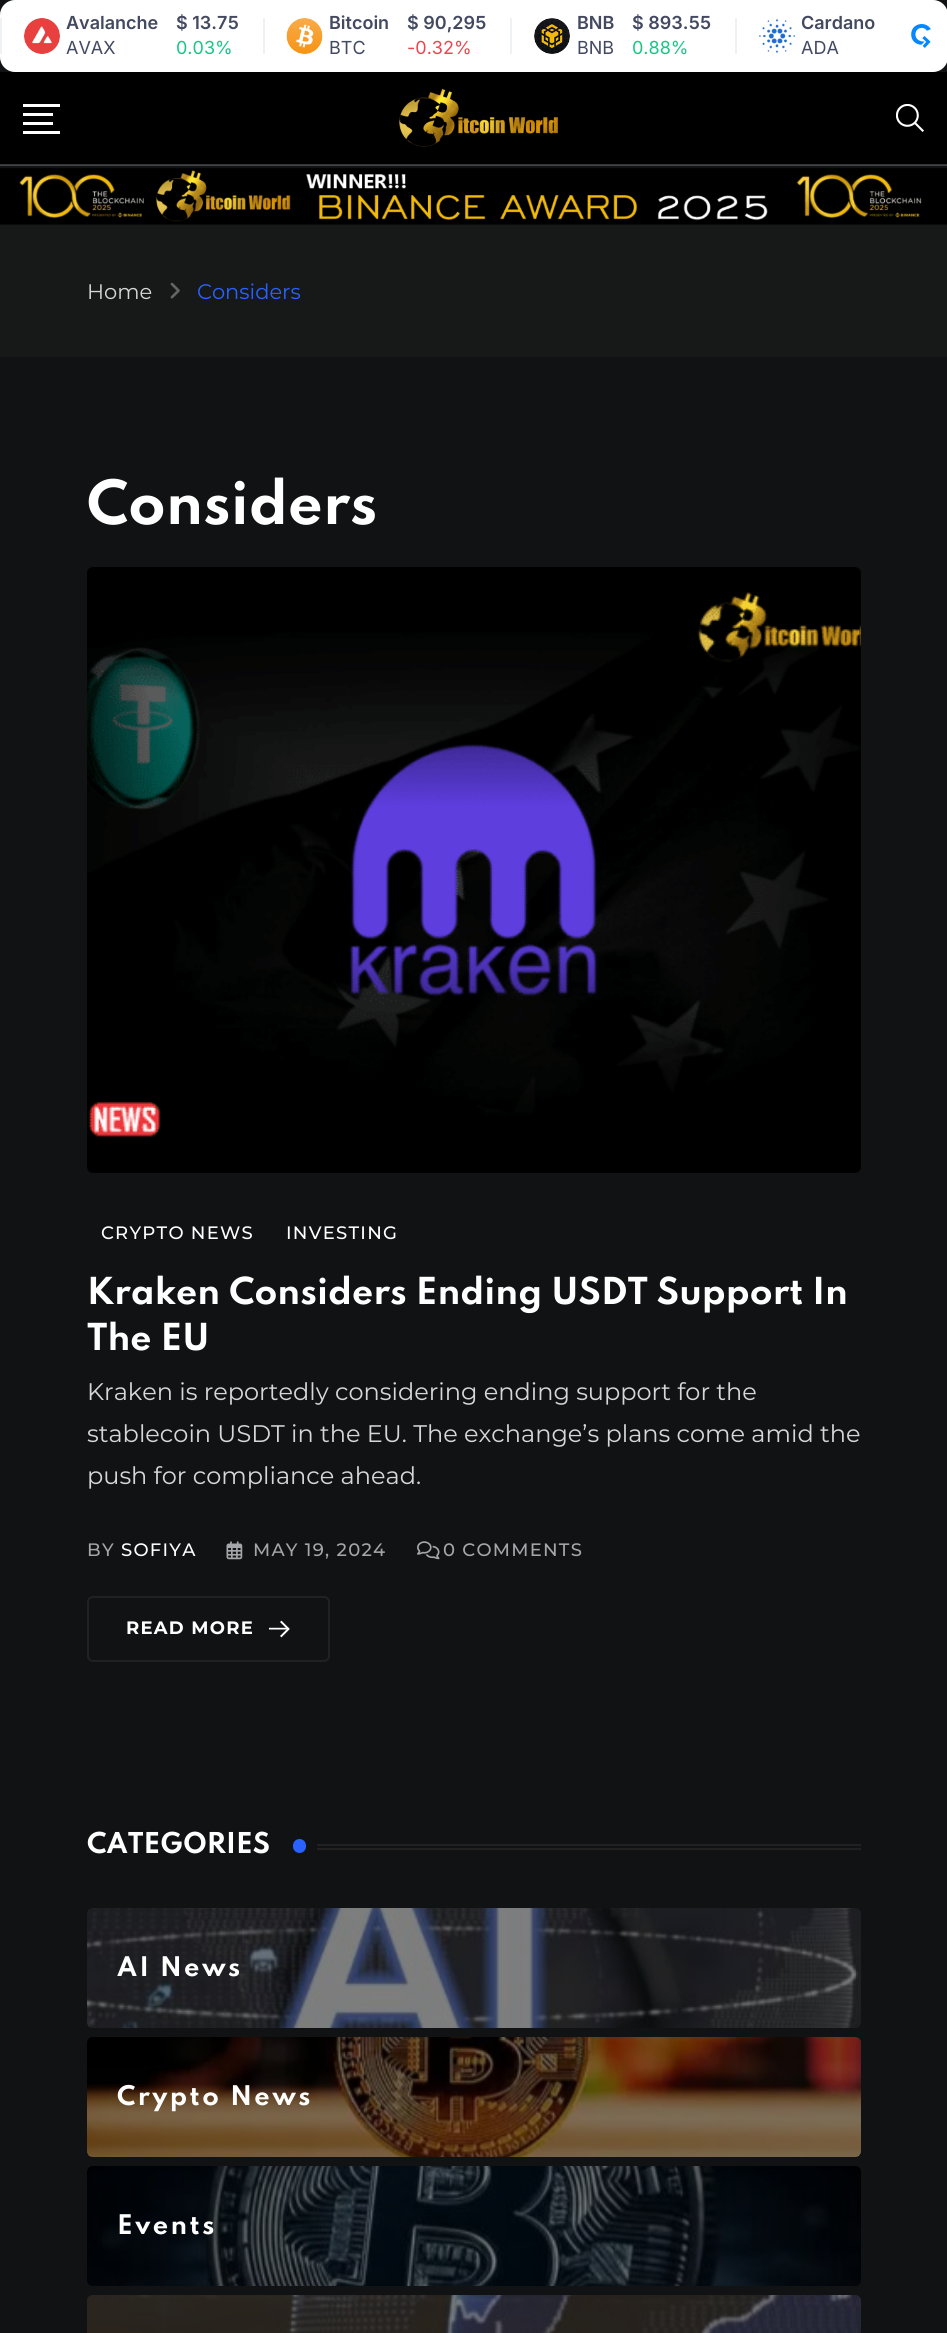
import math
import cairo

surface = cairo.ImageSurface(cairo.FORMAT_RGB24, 947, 2333)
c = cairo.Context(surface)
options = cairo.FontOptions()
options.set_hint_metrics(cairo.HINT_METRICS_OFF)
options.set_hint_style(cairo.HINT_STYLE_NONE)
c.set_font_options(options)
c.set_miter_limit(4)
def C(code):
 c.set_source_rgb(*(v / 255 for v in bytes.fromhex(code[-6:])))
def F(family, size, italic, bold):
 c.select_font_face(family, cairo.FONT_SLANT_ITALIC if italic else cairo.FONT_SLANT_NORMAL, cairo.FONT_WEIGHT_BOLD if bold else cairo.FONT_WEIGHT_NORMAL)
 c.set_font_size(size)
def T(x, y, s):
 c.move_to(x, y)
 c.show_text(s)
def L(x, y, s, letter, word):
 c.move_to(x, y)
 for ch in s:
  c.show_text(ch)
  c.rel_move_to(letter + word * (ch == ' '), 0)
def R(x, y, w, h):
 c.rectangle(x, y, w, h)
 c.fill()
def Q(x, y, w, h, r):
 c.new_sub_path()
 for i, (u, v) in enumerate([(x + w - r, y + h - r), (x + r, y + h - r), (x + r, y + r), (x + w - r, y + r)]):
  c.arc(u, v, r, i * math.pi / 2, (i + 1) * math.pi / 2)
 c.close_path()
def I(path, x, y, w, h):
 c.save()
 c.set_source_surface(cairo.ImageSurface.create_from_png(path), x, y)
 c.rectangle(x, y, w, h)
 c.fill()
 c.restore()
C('101213')
c.paint()
C('424344')
R(0,165,947,1)
C('ffffff')
Q(0,0,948,72,15)
c.fill()
C('eff2f5')
R(0,18,2,36)
I('1.png',24,18,36,36)
F('Inter SemiBold',18,0,0)
C('424961')
T(66,29,'Avalanche')
F('Inter',18,0,0)
T(66,54,'AVAX')
F('Inter SemiBold',18,0,0)
T(176,29,'$ 13.75')
F('Inter',18,0,0)
C('16c784')
T(176,54,'0.03%')
C('eff2f5')
R(263,18,2,36)
I('2.png',286,18,37,36)
F('Inter SemiBold',18,0,0)
C('424961')
T(329,29,'Bitcoin')
F('Inter',18,0,0)
T(329,54,'BTC')
F('Inter SemiBold',18,0,0)
T(407,29,'$ 90,295')
F('Inter',18,0,0)
C('ee444e')
T(407,54,'-0.32%')
C('eff2f5')
R(510,18,2,36)
I('3.png',534,18,36,36)
F('Inter SemiBold',18,0,0)
C('424961')
T(577,29,'BNB')
F('Inter',18,0,0)
T(577,54,'BNB')
F('Inter SemiBold',18,0,0)
T(632,29,'$ 893.55')
F('Inter',18,0,0)
C('16c784')
T(632,54,'0.88%')
C('eff2f5')
R(735,18,2,36)
I('4.png',759,19,36,34)
F('Inter SemiBold',18,0,0)
C('424961')
T(801,29,'Cardano')
F('Inter',18,0,0)
T(801,54,'ADA')
I('5.png',911,24,20,24)
C('000000')
R(0,72,947,92)
C('363636')
R(0,164,947,1)
C('ffffff')
R(23,104,37,3)
R(23,113,30,3)
R(23,122,30,3)
R(23,131,37,3)
I('6.png',399,88,159,59)
I('7.png',896,104,28,28)
I('8.png',0,168,947,57)
C('171818')
R(0,225,947,132)
F('Montserrat',21,0,0)
C('d7d7d7')
T(87,299,'Home')
I('9.png',170,282,10,17)
C('2962ff')
T(197,299,'Considers')
F('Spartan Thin',54,0,1)
C('ffffff')
T(87,524,'Considers')
I('10.png',87,567,774,606)
F('Montserrat Medium',18,0,0)
L(101,1239,'CRYPTO NEWS',1.25,0)
L(286,1239,'INVESTING',1.25,0)
F('Spartan Thin',33,0,1)
T(87,1304,'Kraken Considers Ending USDT Support In')
T(87,1350,'The EU')
F('Montserrat',24,0,0)
C('d7d7d7')
T(87,1400,'Kraken is reportedly considering ending support for the')
T(87,1442,'stablecoin USDT in the EU. The exchange’s plans come amid the')
T(87,1484,'push for compliance ahead.')
F('Montserrat Medium',18,0,0)
C('a5a6aa')
L(87,1556,'BY',1.25,0)
C('ffffff')
L(121,1556,'SOFIYA',1.25,0)
I('11.png',226,1541,17,19)
C('a5a6aa')
L(253,1556,'MAY 19, 2024',1.25,0)
I('12.png',417,1541,23,19)
L(443,1556,'0 COMMENTS',1.25,0)
Q(88,1597,241,64,5)
C('222121')
c.stroke()
F('Montserrat',18,0,1)
C('ffffff')
L(126,1634,'READ MORE',1.25,0)
I('13.png',269,1620,21,18)
F('Spartan Thin',25.5,0,1)
T(87,1853,'CATEGORIES')
C('2962ff')
Q(293,1839,13,14,6.5)
c.fill()
C('222121')
R(317,1844,544,2)
R(317,1848,544,2)
I('14.png',87,1908,774,120)
c.set_source_rgba(0,0,0,0.5)
Q(87,1908,774,120,6)
c.fill()
F('Spartan Thin',24,0,1)
C('ffffff')
L(117,1976,'AI News',2.4,0)
I('15.png',87,2037,774,120)
c.set_source_rgba(0,0,0,0.5)
Q(87,2037,774,120,6)
c.fill()
C('ffffff')
L(117,2105,'Crypto News',2.4,0)
I('16.png',87,2166,774,120)
c.set_source_rgba(0,0,0,0.5)
Q(87,2166,774,120,6)
c.fill()
C('ffffff')
L(117,2234,'Events',2.4,0)
I('17.png',87,2295,774,38)
c.set_source_rgba(0,0,0,0.5)
Q(87,2295,774,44,6)
c.fill()
surface.write_to_png('o.png')
